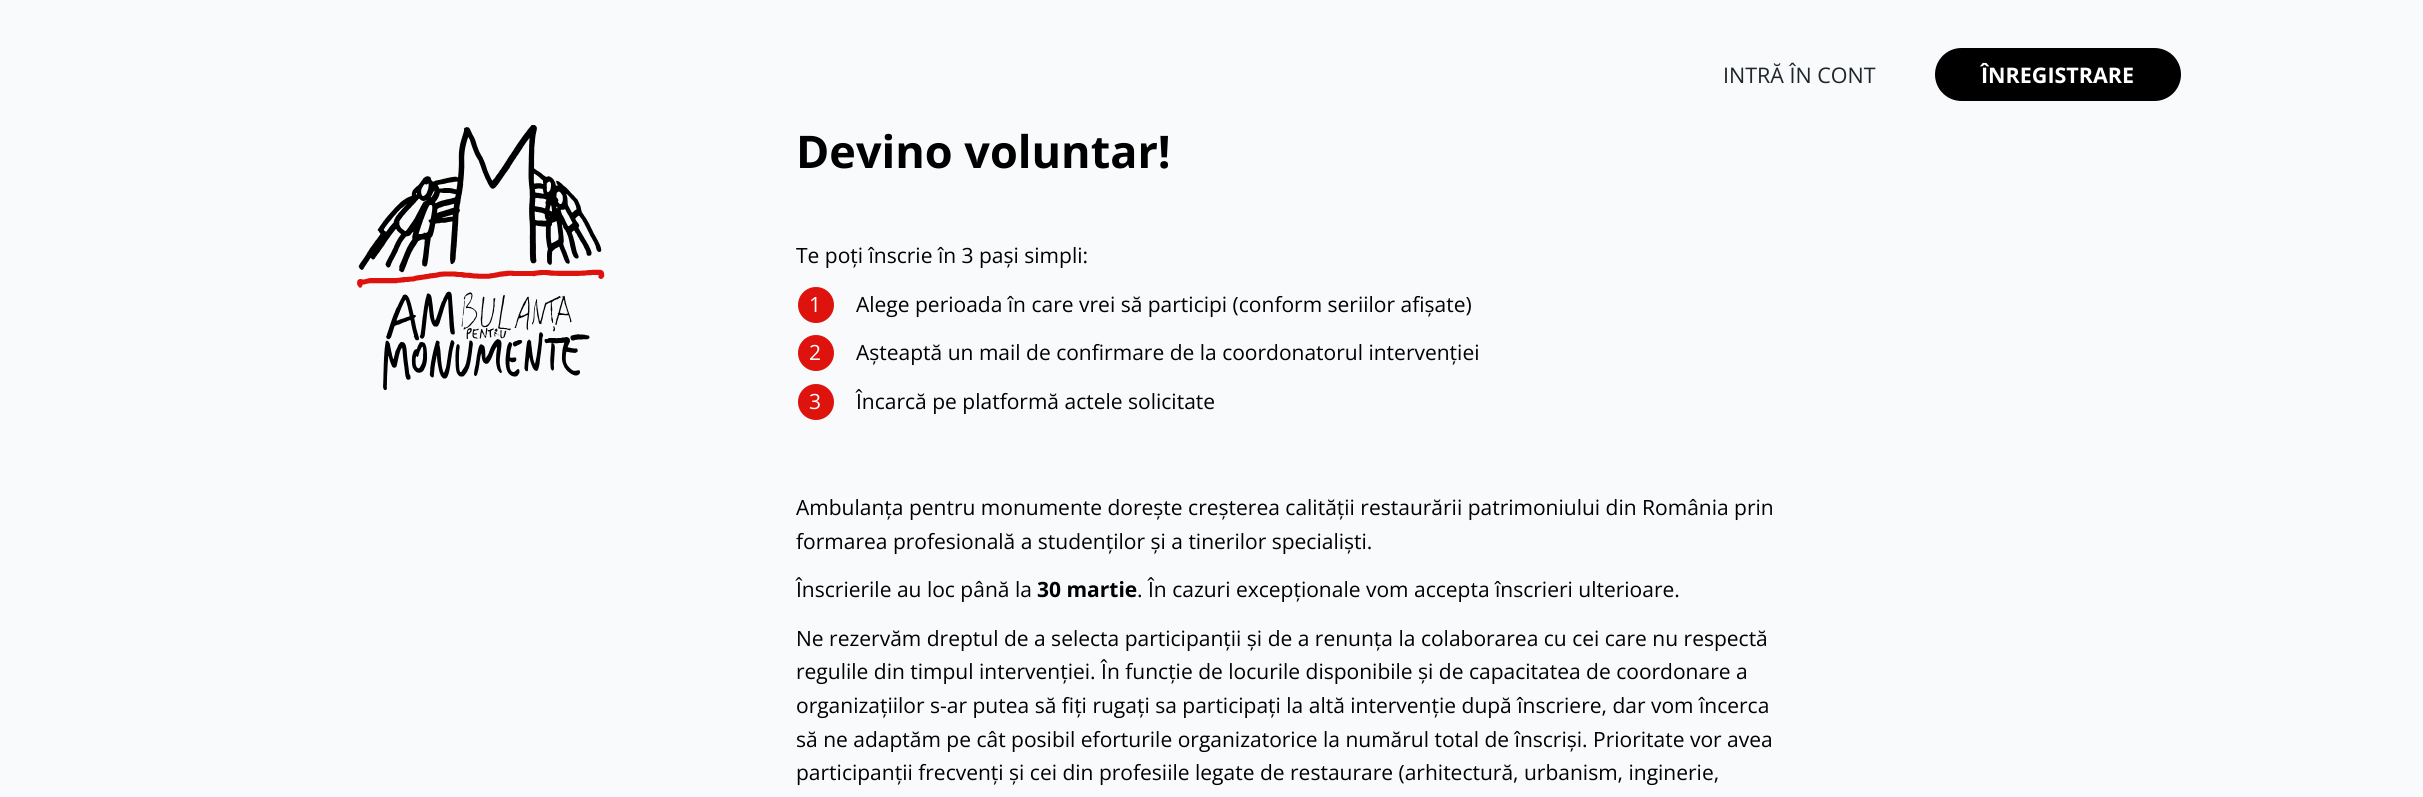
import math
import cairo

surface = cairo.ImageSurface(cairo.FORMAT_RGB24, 2423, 797)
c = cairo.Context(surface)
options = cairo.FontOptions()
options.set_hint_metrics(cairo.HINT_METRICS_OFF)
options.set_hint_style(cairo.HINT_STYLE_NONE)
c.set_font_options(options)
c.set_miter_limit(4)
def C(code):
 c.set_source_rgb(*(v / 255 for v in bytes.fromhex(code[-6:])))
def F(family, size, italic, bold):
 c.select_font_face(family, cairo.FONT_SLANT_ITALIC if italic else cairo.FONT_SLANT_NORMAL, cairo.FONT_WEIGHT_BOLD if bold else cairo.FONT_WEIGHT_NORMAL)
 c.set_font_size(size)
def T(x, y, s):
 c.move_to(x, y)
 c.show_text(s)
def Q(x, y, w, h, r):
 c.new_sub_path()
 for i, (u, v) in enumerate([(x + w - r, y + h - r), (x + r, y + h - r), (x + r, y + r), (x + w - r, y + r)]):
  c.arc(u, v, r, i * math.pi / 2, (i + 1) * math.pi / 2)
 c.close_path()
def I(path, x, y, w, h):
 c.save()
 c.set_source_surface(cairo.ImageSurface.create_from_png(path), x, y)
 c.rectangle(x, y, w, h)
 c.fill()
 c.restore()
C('f8fafc')
c.paint()
F('Open Sans',21.5,0,0)
C('212529')
T(1723,83,'INTRĂ ÎN CONT')
C('000000')
Q(1936,49,244,51,25.5)
c.fill_preserve()
c.stroke()
F('Open Sans',21.5,0,1)
C('ffffff')
T(1981,83,'ÎNREGISTRARE')
I('1.png',357,125,248,265)
F('Open Sans',45,0,1)
C('000000')
T(796,168,'Devino voluntar!')
F('Open Sans',21,0,0)
T(796,263,'Te poți înscrie în 3 pași simpli:')
C('de130d')
c.new_path()
c.arc(816,305,18,0,2 * math.pi)
c.fill()
C('ffffff')
T(809,312,'1')
C('000000')
T(856,312,'Alege perioada în care vrei să participi (conform seriilor afișate)')
C('de130d')
c.new_path()
c.arc(816,353,18,0,2 * math.pi)
c.fill()
C('ffffff')
T(809,360,'2')
C('000000')
T(856,360,'Așteaptă un mail de confirmare de la coordonatorul intervenției')
C('de130d')
c.new_path()
c.arc(816,402,18,0,2 * math.pi)
c.fill()
C('ffffff')
T(809,409,'3')
C('000000')
T(856,409,'Încarcă pe platformă actele solicitate')
T(796,515,'Ambulanța pentru monumente dorește creșterea calității restaurării patrimoniului din România prin')
T(796,549,'formarea profesională a studenților și a tinerilor specialiști.')
T(796,597,'Înscrierile au loc până la')
F('Open Sans',21,0,1)
T(1037,597,'30 martie')
F('Open Sans',21,0,0)
T(1137,597,'. În cazuri excepționale vom accepta înscrieri ulterioare.')
T(796,646,'Ne rezervăm dreptul de a selecta participanții și de a renunța la colaborarea cu cei care nu respectă')
T(796,679,'regulile din timpul intervenției. În funcție de locurile disponibile și de capacitatea de coordonare a')
T(796,713,'organizațiilor s-ar putea să fiți rugați sa participați la altă intervenție după înscriere, dar vom încerca')
T(796,747,'să ne adaptăm pe cât posibil eforturile organizatorice la numărul total de înscriși. Prioritate vor avea')
T(796,780,'participanții frecvenți și cei din profesiile legate de restaurare (arhitectură, urbanism, inginerie,')
surface.write_to_png('o.png')
